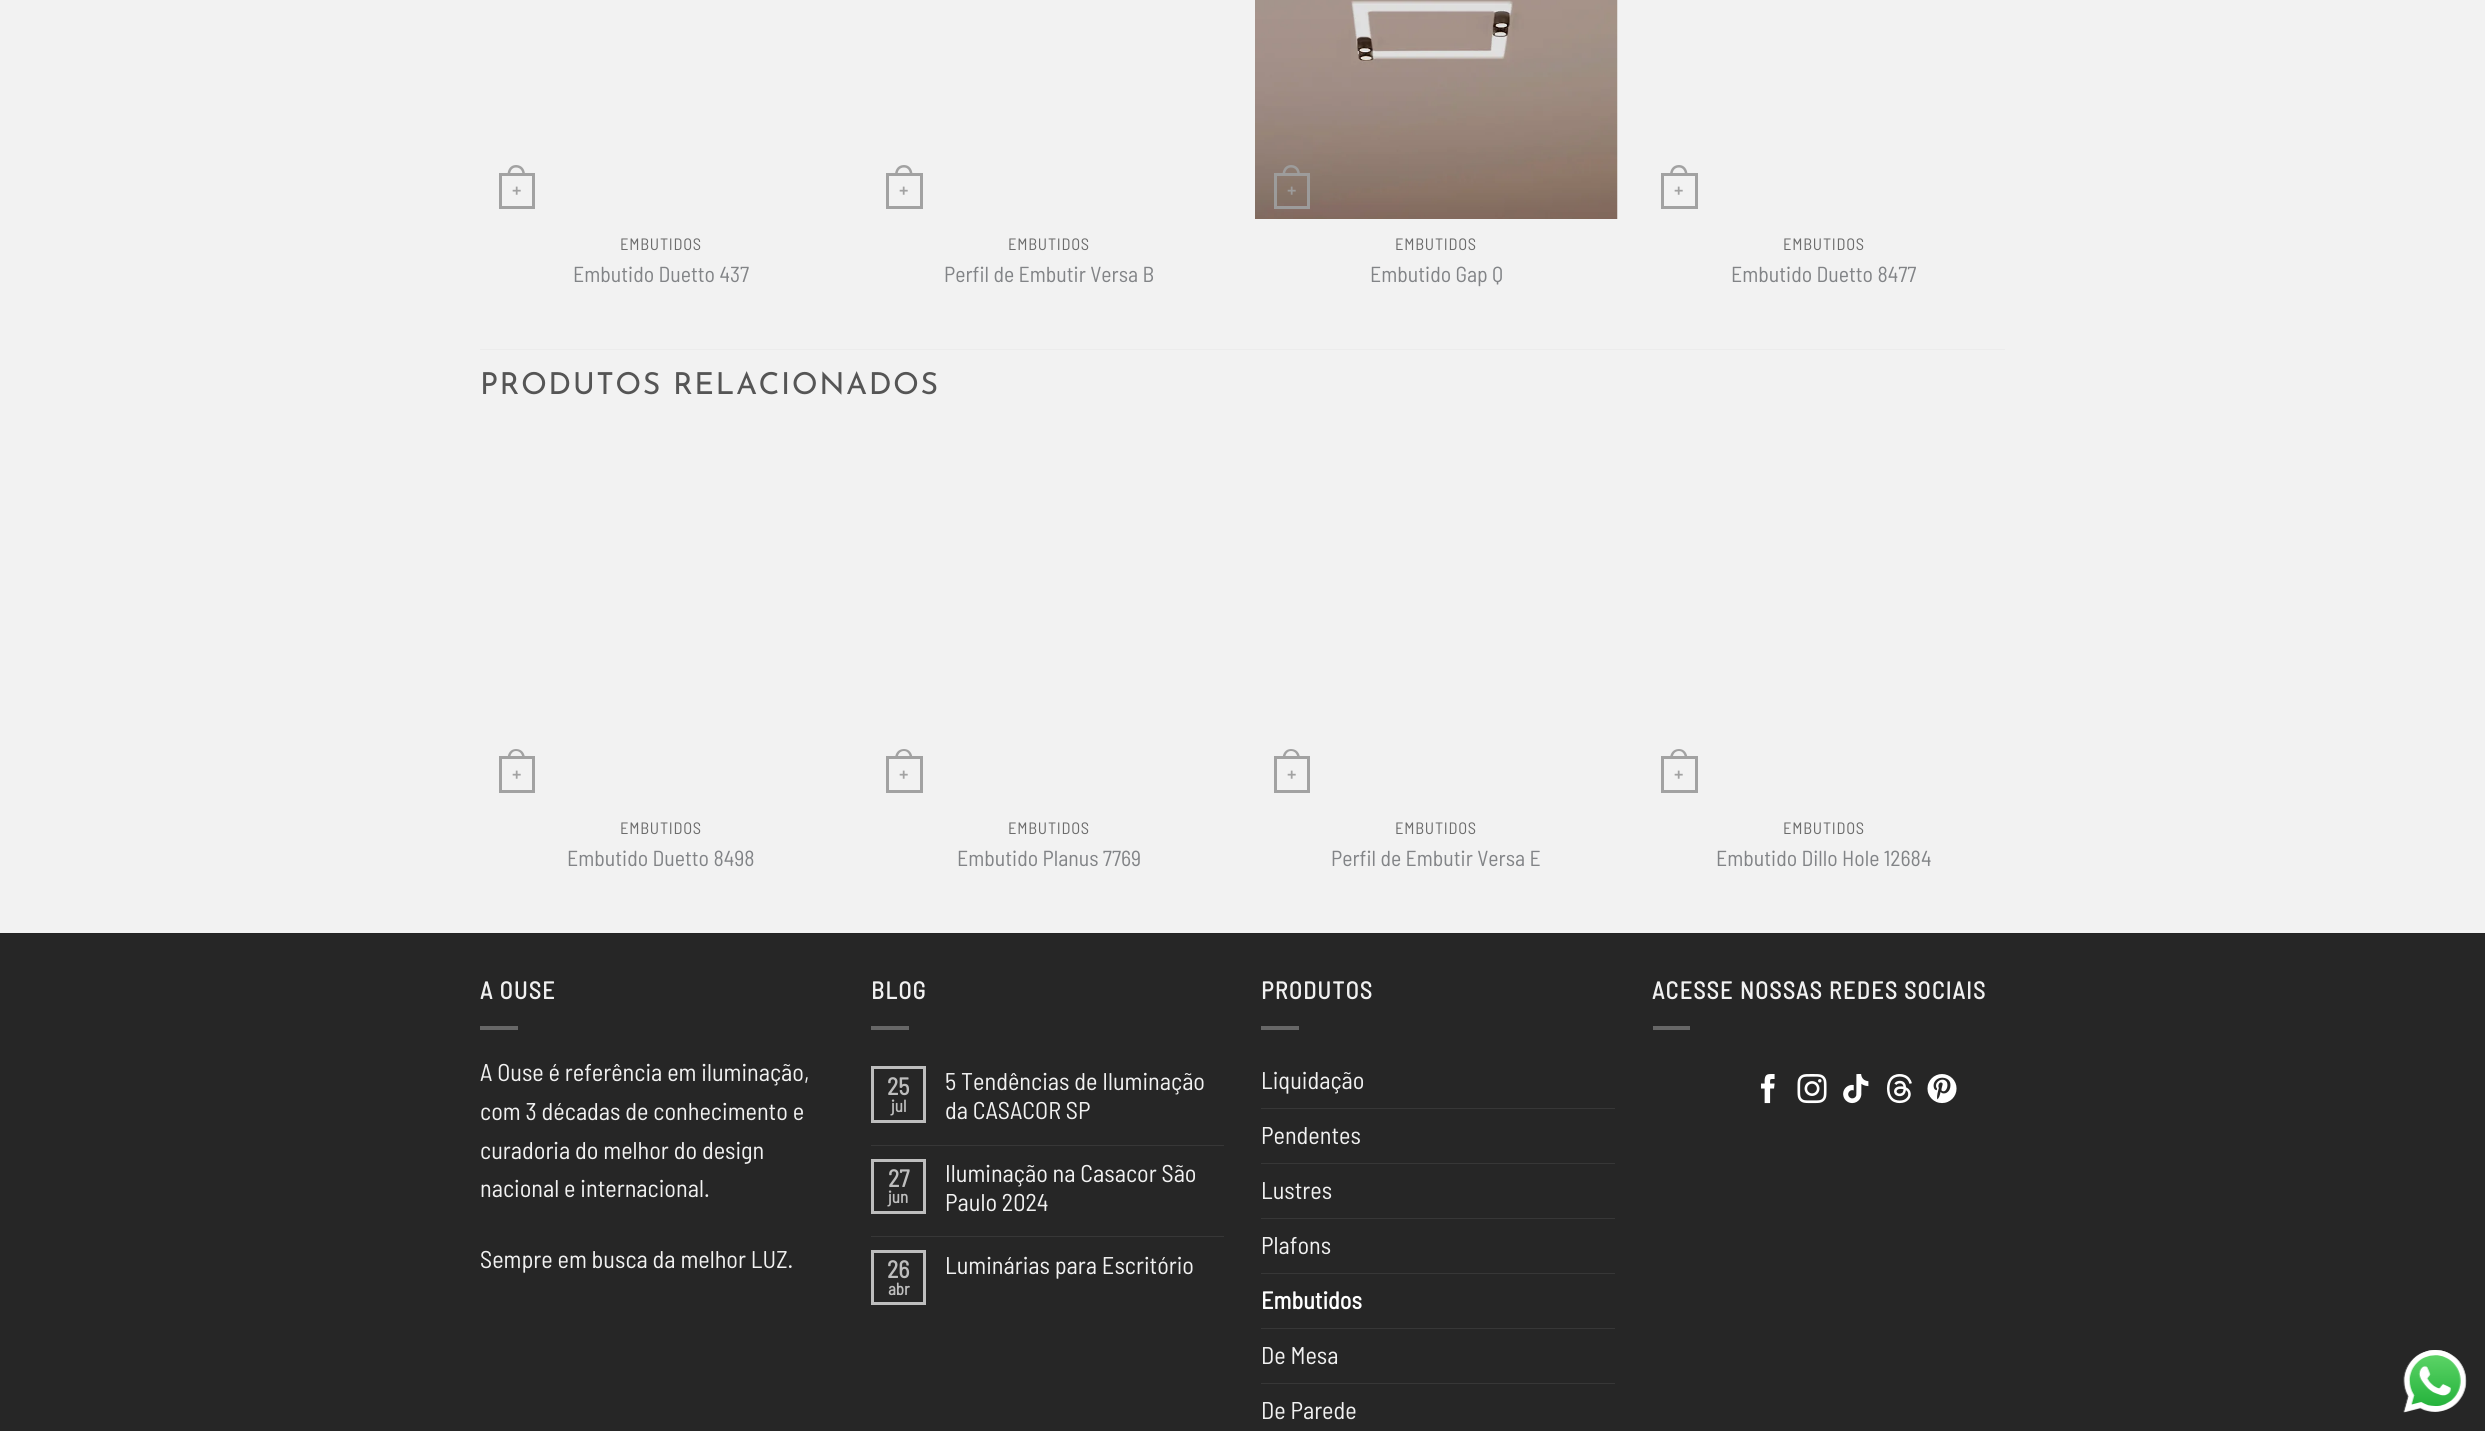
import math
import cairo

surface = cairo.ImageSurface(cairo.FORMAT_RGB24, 2485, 1431)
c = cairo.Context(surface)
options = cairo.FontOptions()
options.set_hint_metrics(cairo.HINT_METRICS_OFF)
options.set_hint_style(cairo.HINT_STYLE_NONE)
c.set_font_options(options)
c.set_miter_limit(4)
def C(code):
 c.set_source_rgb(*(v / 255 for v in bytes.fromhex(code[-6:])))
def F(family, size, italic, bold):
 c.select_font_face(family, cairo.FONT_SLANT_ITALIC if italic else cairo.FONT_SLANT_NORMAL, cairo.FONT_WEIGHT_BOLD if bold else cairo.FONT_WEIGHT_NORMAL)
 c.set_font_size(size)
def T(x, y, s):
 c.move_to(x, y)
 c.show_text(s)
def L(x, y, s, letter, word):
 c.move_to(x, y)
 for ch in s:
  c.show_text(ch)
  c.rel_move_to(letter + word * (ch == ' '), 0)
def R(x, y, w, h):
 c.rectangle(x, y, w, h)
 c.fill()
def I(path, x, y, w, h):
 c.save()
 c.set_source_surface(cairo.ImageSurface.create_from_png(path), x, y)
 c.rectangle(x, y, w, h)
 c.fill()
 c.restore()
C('f2f2f2')
c.paint()
c.rectangle(500.5,174.5,33,33)
C('a2a2a2')
c.set_line_width(3)
c.stroke()
c.set_fill_rule(cairo.FILL_RULE_EVEN_ODD)
c.new_path()
c.move_to(516,165)
c.curve_to(522,165,525,169.5,525,175)
c.line_to(507.5,175)
c.curve_to(507.5,169.5,510.5,165,516,165)
c.close_path()
c.move_to(516,167.5)
c.curve_to(520.5,167.5,522.5,171,522.5,175)
c.line_to(510,175)
c.curve_to(510,171,512,167.5,516,167.5)
c.close_path()
c.fill()
F('Liberation Sans',16,0,1)
T(512,196,'+')
F('Barlow Semi Condensed',16.5,0,0)
C('6c6c6c')
L(620,250,'EMBUTIDOS',.75,0)
F('Barlow Semi Condensed',21.75,0,0)
C('828487')
T(573,282,'Embutido Duetto 437')
c.rectangle(887.5,174.5,34,33)
C('a2a2a2')
c.stroke()
c.new_path()
c.move_to(904,165)
c.curve_to(909.5,165,912.5,169.5,912.5,175)
c.line_to(895,175)
c.curve_to(895,169.5,898,165,904,165)
c.close_path()
c.move_to(904,167.5)
c.curve_to(908,167.5,910,171,910,175)
c.line_to(897.5,175)
c.curve_to(897.5,171,899.5,167.5,904,167.5)
c.close_path()
c.fill()
F('Liberation Sans',16,0,1)
T(899,196,'+')
F('Barlow Semi Condensed',16.5,0,0)
C('6c6c6c')
L(1008,250,'EMBUTIDOS',.75,0)
F('Barlow Semi Condensed',21.75,0,0)
C('828487')
T(944,282,'Perfil de Embutir Versa B')
I('1.png',1255,0,363,219)
c.rectangle(1275.5,174.5,33,33)
c.set_source_rgba(0.62,0.62,0.62,0.95)
c.stroke()
c.new_path()
c.move_to(1291,165)
c.curve_to(1297,165,1300,169.5,1300,175)
c.line_to(1282.5,175)
c.curve_to(1282.5,169.5,1285.5,165,1291,165)
c.close_path()
c.move_to(1291,167.5)
c.curve_to(1295.5,167.5,1297.5,171,1297.5,175)
c.line_to(1285,175)
c.curve_to(1285,171,1287,167.5,1291,167.5)
c.close_path()
c.fill()
F('Liberation Sans',16,0,1)
C('9d9c9b')
T(1287,196,'+')
F('Barlow Semi Condensed',16.5,0,0)
C('6c6c6c')
L(1395,250,'EMBUTIDOS',.75,0)
F('Barlow Semi Condensed',21.75,0,0)
C('828487')
T(1370,282,'Embutido Gap Q')
c.rectangle(1662.5,174.5,34,33)
C('a2a2a2')
c.stroke()
c.new_path()
c.move_to(1679,165)
c.curve_to(1684.5,165,1687.5,169.5,1687.5,175)
c.line_to(1670,175)
c.curve_to(1670,169.5,1673,165,1679,165)
c.close_path()
c.move_to(1679,167.5)
c.curve_to(1683,167.5,1685,171,1685,175)
c.line_to(1672.5,175)
c.curve_to(1672.5,171,1674.5,167.5,1679,167.5)
c.close_path()
c.fill()
F('Liberation Sans',16,0,1)
T(1674,196,'+')
F('Barlow Semi Condensed',16.5,0,0)
C('6c6c6c')
L(1783,250,'EMBUTIDOS',.75,0)
F('Barlow Semi Condensed',21.75,0,0)
C('828487')
T(1731,282,'Embutido Duetto 8477')
C('ececec')
R(480,349,1525,1)
F('Josefin Sans Thin',30.25,0,0)
C('555555')
L(480,394,'PRODUTOS RELACIONADOS',1.5,0)
c.rectangle(500.5,757.5,33,34)
C('a2a2a2')
c.stroke()
c.new_path()
c.move_to(516,749)
c.curve_to(522,749,525,753.5,525,759)
c.line_to(507.5,759)
c.curve_to(507.5,753.5,510.5,749,516,749)
c.close_path()
c.move_to(516,751)
c.curve_to(520.5,751,522.5,755,522.5,759)
c.line_to(510,759)
c.curve_to(510,755,512,751,516,751)
c.close_path()
c.fill()
F('Liberation Sans',16,0,1)
T(512,780,'+')
F('Barlow Semi Condensed',16.5,0,0)
C('6c6c6c')
L(620,834,'EMBUTIDOS',.75,0)
F('Barlow Semi Condensed',21.75,0,0)
C('828487')
T(567,866,'Embutido Duetto 8498')
c.rectangle(887.5,757.5,34,34)
C('a2a2a2')
c.stroke()
c.new_path()
c.move_to(904,749)
c.curve_to(909.5,749,912.5,753.5,912.5,759)
c.line_to(895,759)
c.curve_to(895,753.5,898,749,904,749)
c.close_path()
c.move_to(904,751)
c.curve_to(908,751,910,755,910,759)
c.line_to(897.5,759)
c.curve_to(897.5,755,899.5,751,904,751)
c.close_path()
c.fill()
F('Liberation Sans',16,0,1)
T(899,780,'+')
F('Barlow Semi Condensed',16.5,0,0)
C('6c6c6c')
L(1008,834,'EMBUTIDOS',.75,0)
F('Barlow Semi Condensed',21.75,0,0)
C('828487')
T(957,866,'Embutido Planus 7769')
c.rectangle(1275.5,757.5,33,34)
C('a2a2a2')
c.stroke()
c.new_path()
c.move_to(1291,749)
c.curve_to(1297,749,1300,753.5,1300,759)
c.line_to(1282.5,759)
c.curve_to(1282.5,753.5,1285.5,749,1291,749)
c.close_path()
c.move_to(1291,751)
c.curve_to(1295.5,751,1297.5,755,1297.5,759)
c.line_to(1285,759)
c.curve_to(1285,755,1287,751,1291,751)
c.close_path()
c.fill()
F('Liberation Sans',16,0,1)
T(1287,780,'+')
F('Barlow Semi Condensed',16.5,0,0)
C('6c6c6c')
L(1395,834,'EMBUTIDOS',.75,0)
F('Barlow Semi Condensed',21.75,0,0)
C('828487')
T(1331,866,'Perfil de Embutir Versa E')
c.rectangle(1662.5,757.5,34,34)
C('a2a2a2')
c.stroke()
c.new_path()
c.move_to(1679,749)
c.curve_to(1684.5,749,1687.5,753.5,1687.5,759)
c.line_to(1670,759)
c.curve_to(1670,753.5,1673,749,1679,749)
c.close_path()
c.move_to(1679,751)
c.curve_to(1683,751,1685,755,1685,759)
c.line_to(1672.5,759)
c.curve_to(1672.5,755,1674.5,751,1679,751)
c.close_path()
c.fill()
F('Liberation Sans',16,0,1)
T(1674,780,'+')
F('Barlow Semi Condensed',16.5,0,0)
C('6c6c6c')
L(1783,834,'EMBUTIDOS',.75,0)
F('Barlow Semi Condensed',21.75,0,0)
C('828487')
T(1716,866,'Embutido Dillo Hole 12684')
C('262626')
R(0,934,2485,497)
C('242424')
R(0,933,2485,1)
F('Barlow Semi Condensed',24.25,0,1)
C('f1f1f1')
L(480,999,'A OUSE',1.2,0)
C('676767')
R(480,1026,38,4)
F('Barlow Semi Condensed',24.25,0,0)
C('f1f1f1')
T(480,1081,'A Ouse é referência em iluminação,')
T(480,1120,'com 3 décadas de conhecimento e')
T(480,1159,'curadoria do melhor do design')
T(480,1197,'nacional e internacional.')
T(480,1268,'Sempre em busca da melhor LUZ.')
F('Barlow Semi Condensed',24.25,0,1)
L(871,999,'BLOG',1.2,0)
C('676767')
R(871,1026,38,4)
c.rectangle(872.5,1067.5,52,54)
C('bebebe')
c.stroke()
T(887,1095,'25')
F('Barlow Semi Condensed',17,0,1)
T(891,1112,'jul')
F('Barlow Semi Condensed',24.25,0,0)
C('f1f1f1')
T(945,1090,'5 Tendências de Iluminação')
T(945,1119,'da CASACOR SP')
C('373737')
R(871,1145,353,1)
c.rectangle(872.5,1160.5,52,52)
C('bebebe')
c.stroke()
F('Barlow Semi Condensed',24.25,0,1)
T(888,1187,'27')
F('Barlow Semi Condensed',17,0,1)
T(888,1203,'jun')
F('Barlow Semi Condensed',24.25,0,0)
C('f1f1f1')
T(945,1182,'Iluminação na Casacor São')
T(945,1211,'Paulo 2024')
C('373737')
R(871,1236,353,1)
c.rectangle(872.5,1251.5,52,52)
C('bebebe')
c.stroke()
F('Barlow Semi Condensed',24.25,0,1)
T(887,1278,'26')
F('Barlow Semi Condensed',17,0,1)
T(888,1295,'abr')
F('Barlow Semi Condensed',24.25,0,0)
C('f1f1f1')
T(945,1274,'Luminárias para Escritório')
F('Barlow Semi Condensed',24.25,0,1)
L(1261,999,'PRODUTOS',1.2,0)
C('676767')
R(1261,1026,38,4)
F('Barlow Semi Condensed',24.25,0,0)
C('f1f1f1')
T(1261,1089,'Liquidação')
C('373737')
R(1261,1108,354,1)
C('f1f1f1')
T(1261,1144,'Pendentes')
C('373737')
R(1261,1163,354,1)
C('f1f1f1')
T(1261,1199,'Lustres')
C('373737')
R(1261,1218,354,1)
C('f1f1f1')
T(1261,1254,'Plafons')
C('373737')
R(1261,1273,354,1)
F('Barlow Semi Condensed',24.25,0,1)
C('ffffff')
T(1261,1309,'Embutidos')
C('373737')
R(1261,1328,354,1)
F('Barlow Semi Condensed',24.25,0,0)
C('f1f1f1')
T(1261,1364,'De Mesa')
C('373737')
R(1261,1383,354,1)
C('f1f1f1')
T(1261,1419,'De Parede')
F('Barlow Semi Condensed',24.25,0,1)
L(1652,999,'ACESSE NOSSAS REDES SOCIAIS',1.2,0)
C('676767')
R(1653,1026,37,4)
I('2.png',1761,1074,14,30)
I('3.png',1797,1074,30,30)
I('4.png',1843,1074,26,30)
I('5.png',1886,1074,26,30)
I('6.png',1927,1074,30,30)
I('7.png',2403,1350,64,63)
surface.write_to_png('o.png')
